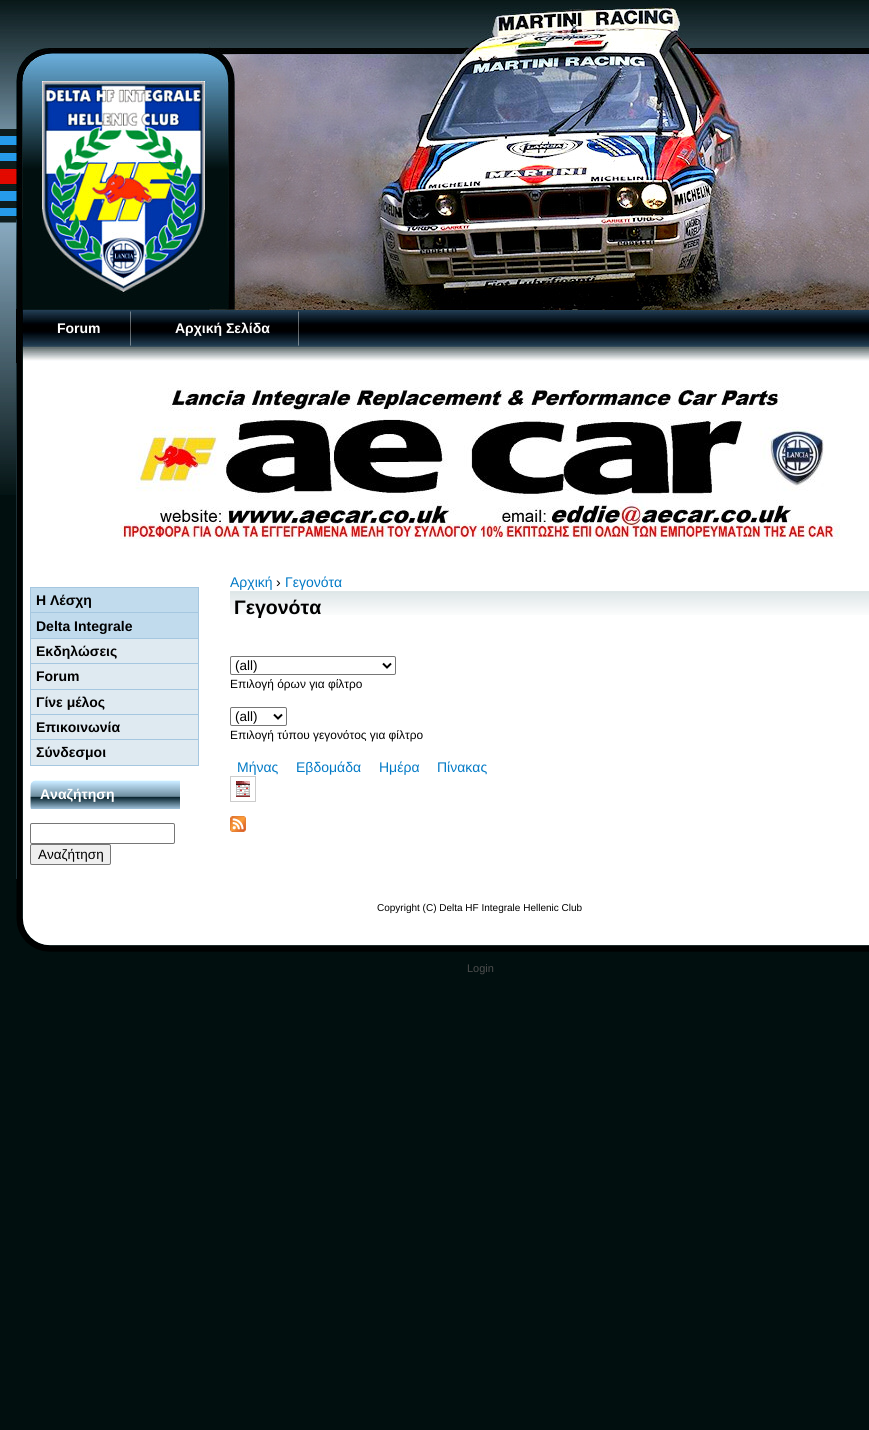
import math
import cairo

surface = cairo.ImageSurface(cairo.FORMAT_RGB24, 869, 1430)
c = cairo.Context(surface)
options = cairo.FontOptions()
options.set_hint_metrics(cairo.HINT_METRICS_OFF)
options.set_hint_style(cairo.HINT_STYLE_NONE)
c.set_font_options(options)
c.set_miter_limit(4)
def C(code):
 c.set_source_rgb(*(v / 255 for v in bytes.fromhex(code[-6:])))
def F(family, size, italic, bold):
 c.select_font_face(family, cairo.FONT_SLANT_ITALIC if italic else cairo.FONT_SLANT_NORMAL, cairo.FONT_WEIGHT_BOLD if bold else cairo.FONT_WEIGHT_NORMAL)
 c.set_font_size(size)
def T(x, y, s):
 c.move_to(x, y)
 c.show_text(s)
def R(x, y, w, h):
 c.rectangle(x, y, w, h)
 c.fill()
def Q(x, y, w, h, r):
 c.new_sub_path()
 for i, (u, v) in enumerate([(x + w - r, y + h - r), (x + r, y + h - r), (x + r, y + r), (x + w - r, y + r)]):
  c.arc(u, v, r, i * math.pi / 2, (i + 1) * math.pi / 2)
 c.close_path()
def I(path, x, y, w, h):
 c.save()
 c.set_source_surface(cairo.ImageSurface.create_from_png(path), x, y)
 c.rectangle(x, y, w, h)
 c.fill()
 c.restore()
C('010f0f')
c.paint()
I('1.png',0,363,16,132)
I('2.png',0,0,869,363)
I('3.png',130,311,1,35)
F('Liberation Sans',14,0,1)
C('ffffff')
T(57,333,'Forum')
I('4.png',298,310,1,36)
T(175,333,'Αρχική Σελίδα')
I('5.png',16,363,853,516)
I('6.png',120,387,720,152)
C('a5c7e0')
R(30,587,169,1)
C('c1dbed')
R(31,588,167,24)
C('a5c7e0')
R(198,588,1,178)
R(30,612,169,1)
R(30,588,1,25)
C('000000')
T(36,605,'Η Λέσχη')
C('c1dbed')
R(31,613,167,25)
C('a5c7e0')
R(30,638,169,1)
R(30,613,1,26)
C('000000')
T(36,631,'Delta Integrale')
C('dfeaf1')
R(31,639,167,24)
C('a5c7e0')
R(30,663,169,1)
R(30,639,1,25)
C('000000')
T(36,656,'Εκδηλώσεις')
C('dfeaf1')
R(31,664,167,25)
C('a5c7e0')
R(30,689,169,1)
R(30,664,1,26)
C('000000')
T(36,681,'Forum')
C('dfeaf1')
R(31,690,167,24)
C('a5c7e0')
R(30,714,169,1)
R(30,690,1,25)
C('000000')
T(36,707,'Γίνε μέλος')
C('dfeaf1')
R(31,715,167,24)
C('a5c7e0')
R(30,739,169,1)
R(30,715,1,25)
C('000000')
T(36,732,'Επικοινωνία')
C('dfeaf1')
R(31,740,167,25)
C('a5c7e0')
R(30,765,169,1)
R(30,740,1,26)
C('000000')
T(36,757,'Σύνδεσμοι')
I('7.png',30,780,150,29)
C('ffffff')
T(40,799,'Αναζήτηση')
Q(30.5,823.5,144,20,1.5)
C('767676')
c.set_line_width(1)
c.stroke()
C('efefef')
Q(30.5,844.5,80,20,1.5)
c.fill_preserve()
C('767676')
c.stroke()
F('Liberation Sans',13.5,0,0)
C('000000')
T(38,859,'Αναζήτηση')
F('Liberation Sans',14,0,0)
C('027ac6')
T(230,587,'Αρχική')
C('000000')
T(276,587,'›')
C('027ac6')
T(285,587,'Γεγονότα')
I('8.png',230,591,639,24)
F('Liberation Sans',19.5,0,1)
C('000000')
T(234,614,'Γεγονότα')
Q(230.5,656.5,165,18,1.5)
C('767676')
c.stroke()
c.new_path()
c.move_to(383,663.5)
c.line_to(387,667.5)
c.line_to(391,663.5)
C('000000')
c.set_line_width(2)
c.stroke()
F('Liberation Sans',13.5,0,0)
T(235,670,'(all)')
F('Liberation Sans',11.9,0,0)
T(230,688,'Επιλογή όρων για φίλτρο')
Q(230.5,707.5,56,18,1.5)
C('767676')
c.set_line_width(1)
c.stroke()
c.new_path()
c.move_to(274,714.5)
c.line_to(278,718.5)
c.line_to(282,714.5)
C('000000')
c.set_line_width(2)
c.stroke()
F('Liberation Sans',13.5,0,0)
T(235,721,'(all)')
F('Liberation Sans',11.9,0,0)
T(230,739,'Επιλογή τύπου γεγονότος για φίλτρο')
F('Liberation Sans',14,0,0)
C('027ac6')
T(237,772,'Μήνας')
T(296,772,'Εβδομάδα')
T(379,772,'Ημέρα')
T(437,772,'Πίνακας')
c.rectangle(230.5,776.5,25,25)
C('cccccc')
c.set_line_width(1)
c.stroke()
I('9.png',236,781,14,16)
I('10.png',230,816,16,16)
I('11.png',16,879,853,73)
F('Liberation Sans',10,0,0)
C('000000')
T(377,911,'Copyright (C) Delta HF Integrale Hellenic Club')
F('Liberation Sans',11,0,0)
C('4d4d4d')
T(467,972,'Login')
surface.write_to_png('o.png')
